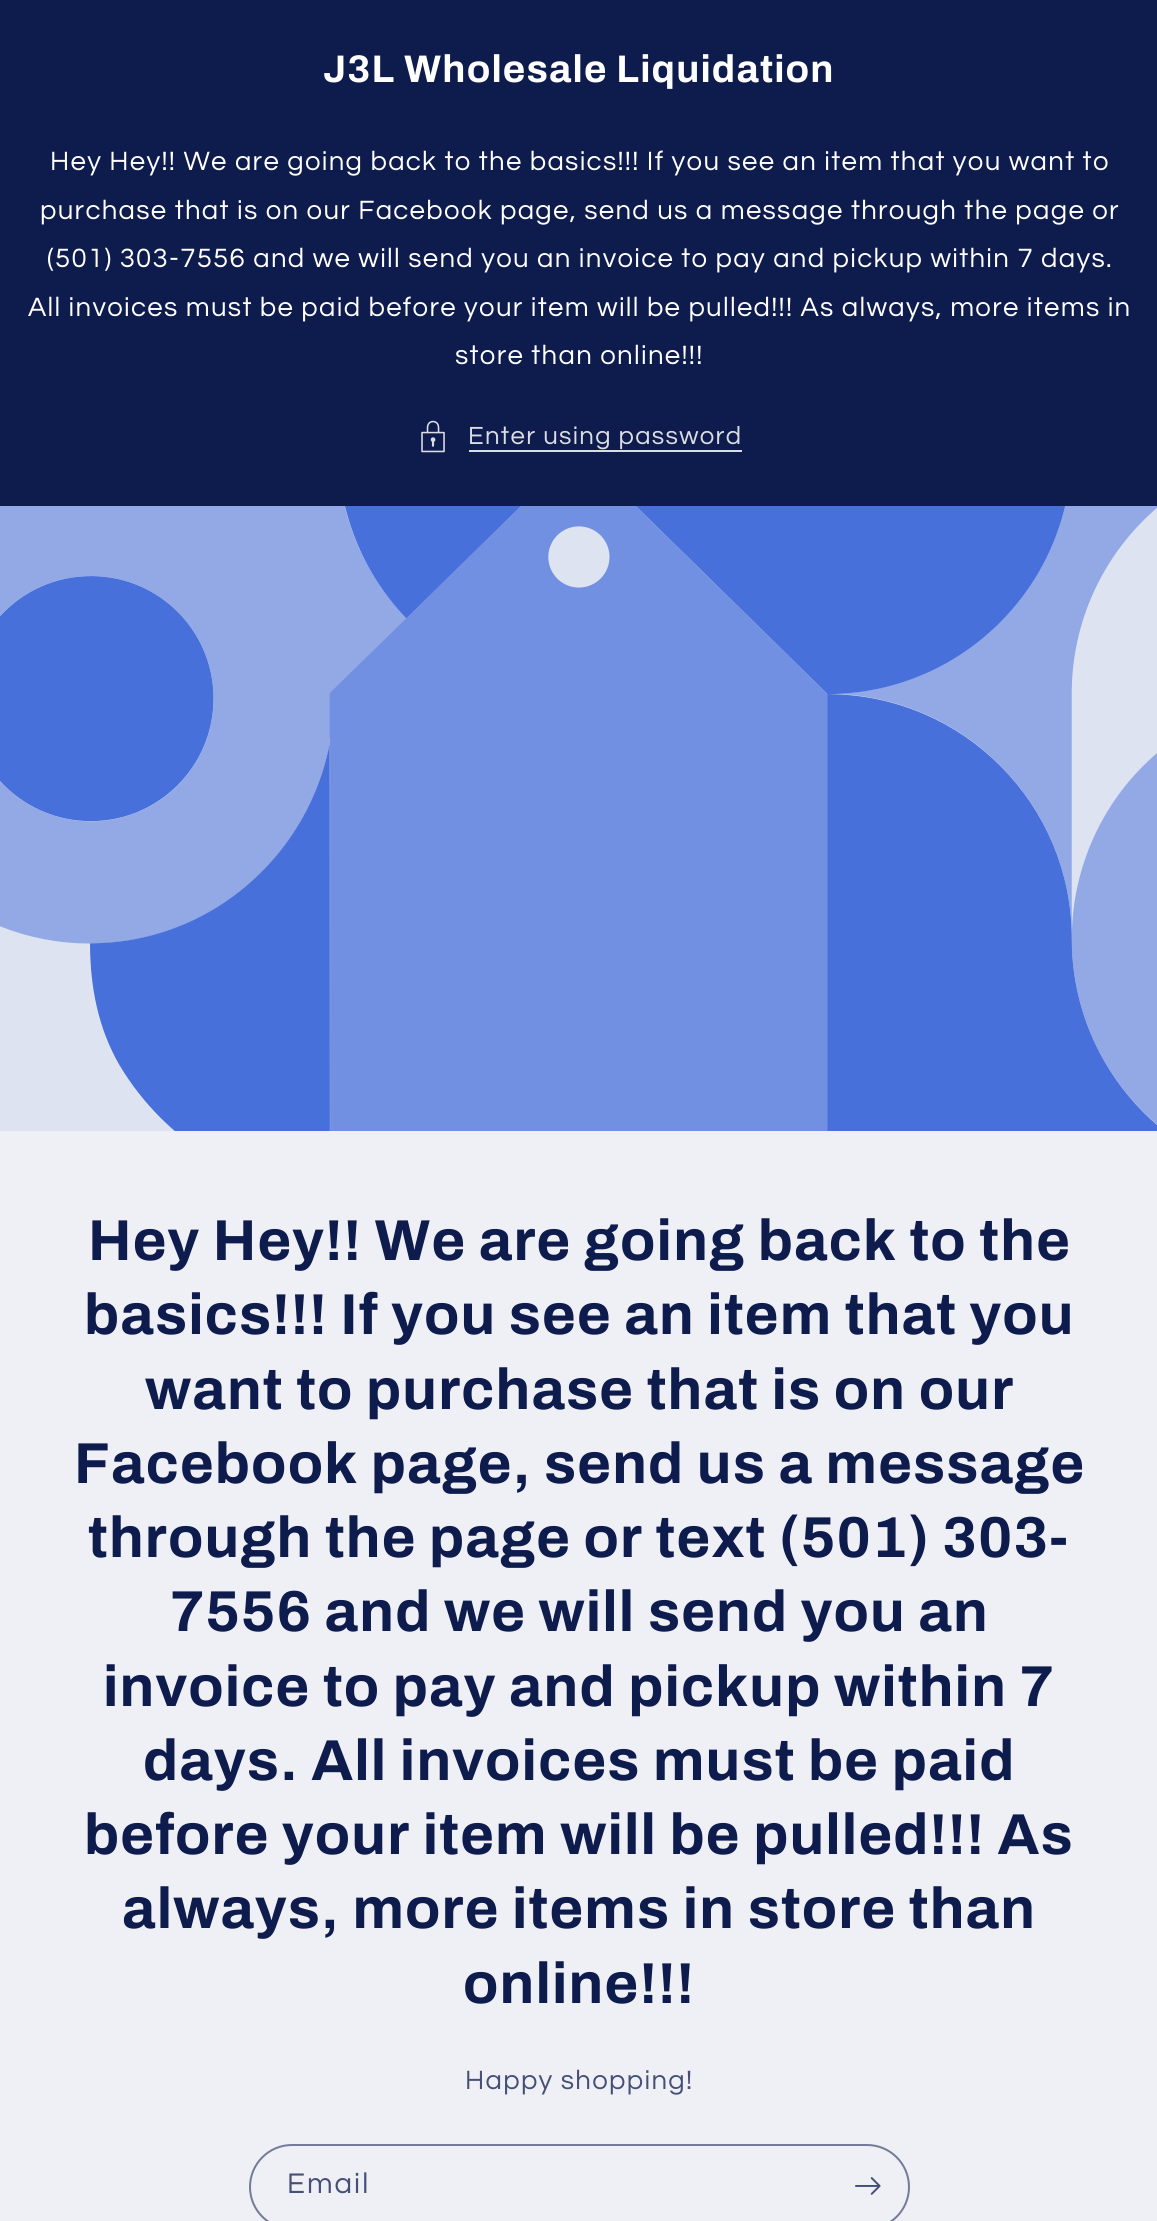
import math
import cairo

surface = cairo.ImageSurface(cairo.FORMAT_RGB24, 1157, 2221)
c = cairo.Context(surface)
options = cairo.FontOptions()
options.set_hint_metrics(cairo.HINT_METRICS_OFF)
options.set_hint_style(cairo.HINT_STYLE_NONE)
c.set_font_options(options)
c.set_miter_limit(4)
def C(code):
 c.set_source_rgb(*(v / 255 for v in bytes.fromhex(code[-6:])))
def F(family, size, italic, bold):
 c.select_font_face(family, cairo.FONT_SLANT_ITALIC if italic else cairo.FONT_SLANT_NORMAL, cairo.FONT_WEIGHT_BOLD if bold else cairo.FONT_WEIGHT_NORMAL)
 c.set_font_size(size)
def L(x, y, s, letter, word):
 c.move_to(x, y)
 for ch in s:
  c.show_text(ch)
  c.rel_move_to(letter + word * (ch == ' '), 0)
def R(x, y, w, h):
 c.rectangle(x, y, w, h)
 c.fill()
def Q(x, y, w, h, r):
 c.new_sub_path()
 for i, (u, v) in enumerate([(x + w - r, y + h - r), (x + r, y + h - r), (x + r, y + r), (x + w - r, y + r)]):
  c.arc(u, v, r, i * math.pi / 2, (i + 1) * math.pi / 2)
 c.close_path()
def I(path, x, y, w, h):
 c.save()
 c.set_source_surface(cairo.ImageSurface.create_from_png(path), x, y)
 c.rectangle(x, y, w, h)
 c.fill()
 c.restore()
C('eff0f5')
c.paint()
C('0e1b4d')
R(0,0,1157,506)
F('Archivo',38.5,0,1)
C('ffffff')
L(323,82,'J3L Wholesale Liquidation',1.15,0)
F('Questrial',27.55,0,0)
L(50,170,'Hey Hey!! We are going back to the basics!!! If you see an item that you want to',1.3,0)
L(40,219,'purchase that is on our Facebook page, send us a message through the page or',1.3,0)
L(47,267,'(501) 303-7556 and we will send you an invoice to pay and pickup within 7 days.',1.3,0)
L(28,316,'All invoices must be paid before your item will be pulled!!! As always, more items in',1.3,0)
L(455,364,'store than online!!!',1.3,0)
I('1.png',421,420,24,33)
F('Questrial',25.75,0,0)
C('dbdde4')
L(468,444,'Enter using password',1.3,0)
R(469,450,273,2)
I('2.png',0,506,1157,625)
F('Archivo',57.75,0,1)
C('0e1b4d')
L(88,1260,'Hey Hey!! We are going back to the',1.15,0)
L(84,1334,'basics!!! If you see an item that you',1.15,0)
L(145,1409,'want to purchase that is on our',1.15,0)
L(74,1483,'Facebook page, send us a message',1.15,0)
L(88,1557,'through the page or text (501) 303-',1.15,0)
L(170,1631,'7556 and we will send you an',1.15,0)
L(103,1706,'invoice to pay and pickup within 7',1.15,0)
L(143,1780,'days. All invoices must be paid',1.15,0)
L(84,1854,'before your item will be pulled!!! As',1.15,0)
L(122,1928,'always, more items in store than',1.15,0)
L(463,2003,'online!!!',1.15,0)
F('Questrial',27.55,0,0)
C('465077')
L(465,2089,'Happy shopping!',1.3,0)
Q(250,2145,659,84,42)
C('737b99')
c.stroke()
F('Questrial',29.5,0,0)
C('465077')
L(287,2193,'Email',2,0)
I('3.png',855,2177,26,18)
surface.write_to_png('o.png')
